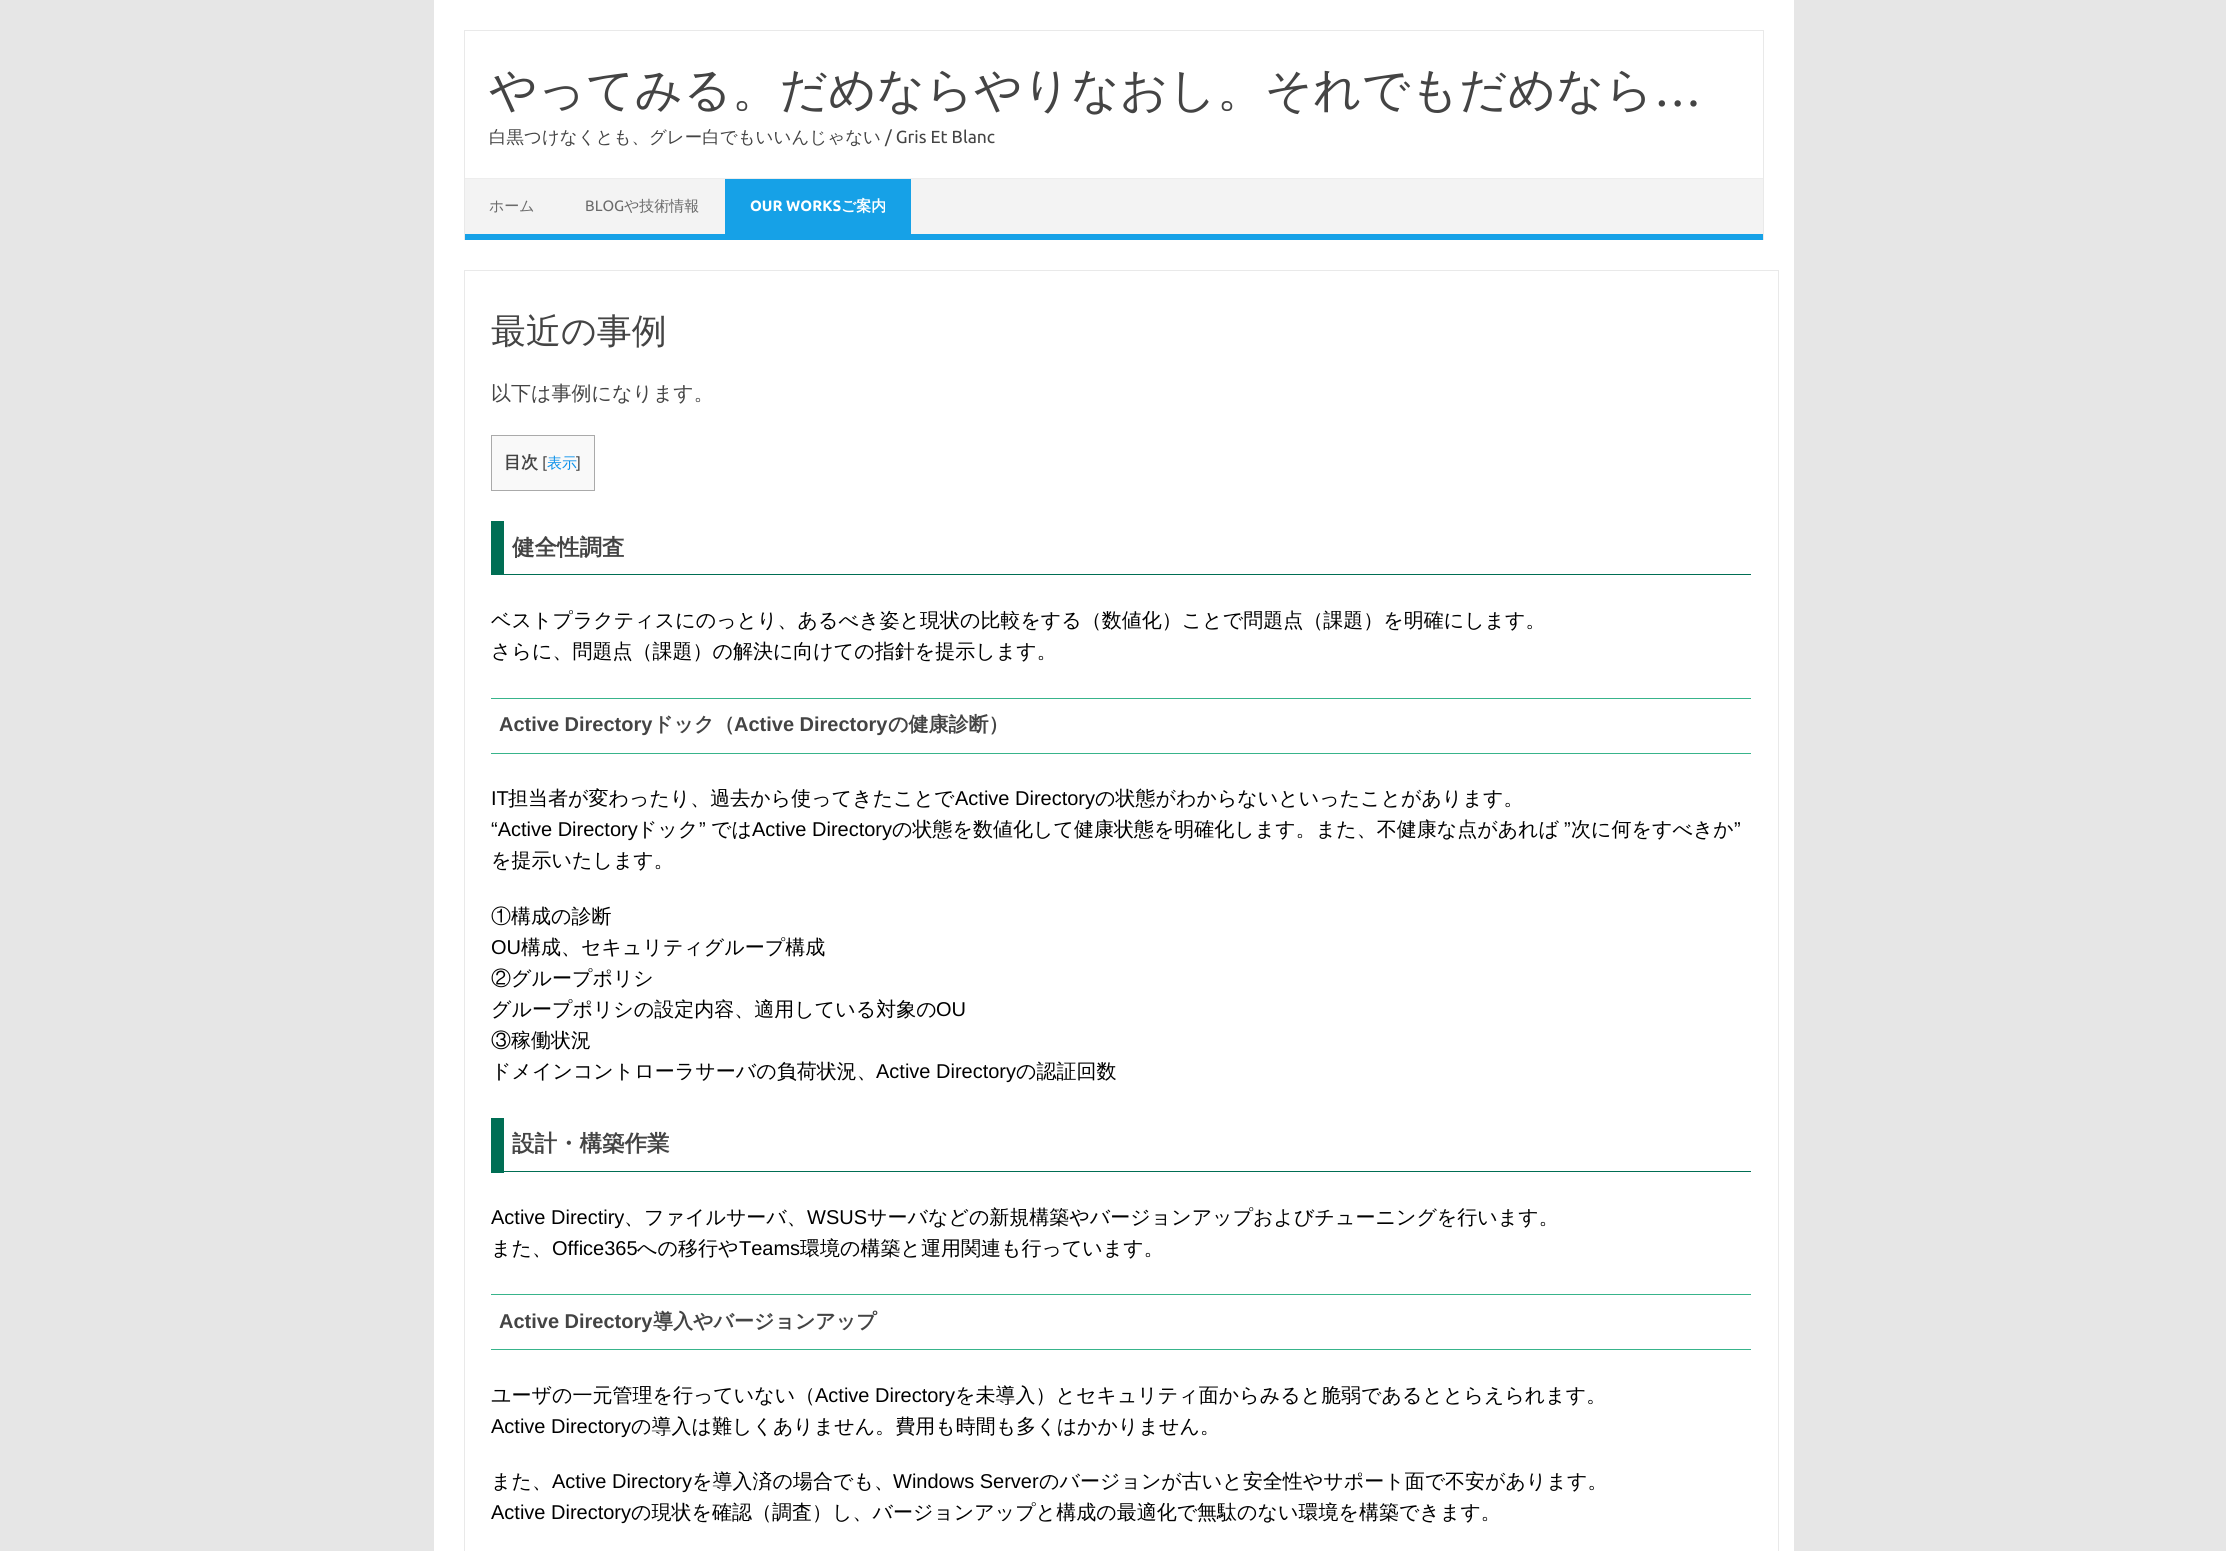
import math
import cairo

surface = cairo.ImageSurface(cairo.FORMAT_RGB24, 2226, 1551)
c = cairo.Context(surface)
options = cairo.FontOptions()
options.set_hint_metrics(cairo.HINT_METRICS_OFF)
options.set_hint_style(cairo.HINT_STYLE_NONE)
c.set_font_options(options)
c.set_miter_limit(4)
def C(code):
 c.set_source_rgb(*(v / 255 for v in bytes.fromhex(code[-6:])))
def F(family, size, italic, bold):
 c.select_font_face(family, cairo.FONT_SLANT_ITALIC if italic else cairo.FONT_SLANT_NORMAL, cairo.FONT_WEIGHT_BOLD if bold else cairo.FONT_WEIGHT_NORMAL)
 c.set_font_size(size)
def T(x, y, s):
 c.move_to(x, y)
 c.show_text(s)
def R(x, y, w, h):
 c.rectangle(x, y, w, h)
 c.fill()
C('e6e6e6')
c.paint()
C('ffffff')
R(434,0,1360,1551)
C('e9e9e9')
R(464,30,1300,1)
R(1763,30,1,210)
R(464,30,1,210)
F('WenQuanYi Zen Hei Medium',47.5,0,0)
C('444444')
T(489,106,'やってみる。だめならやりなおし。それでもだめなら')
F('Ubuntu',47.5,0,0)
T(1654,106,'…')
F('WenQuanYi Zen Hei Medium',17.5,0,0)
T(489,143,'白黒つけなくとも、グレー白でもいいんじゃない')
F('Ubuntu',17.5,0,0)
T(885,143,'/ Gris Et Blanc')
C('f3f3f3')
R(465,179,1298,55)
C('ededed')
R(465,178,1298,1)
C('16a1e7')
R(465,234,1298,6)
F('WenQuanYi Zen Hei Medium',15,0,0)
C('6a6a6a')
T(489,211,'ホーム')
F('Ubuntu',15,0,0)
T(585,211,'BLOG')
F('WenQuanYi Zen Hei Medium',15,0,0)
T(624,211,'や技術情報')
C('16a1e7')
R(725,179,186,55)
F('Ubuntu',15,0,1)
C('ffffff')
T(750,211,'OUR WORKS')
F('WenQuanYi Zen Hei',15,0,1)
T(841,211,'ご案内')
c.rectangle(464.5,270.5,1314,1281)
C('e9e9e9')
c.set_line_width(1)
c.stroke()
F('WenQuanYi Zen Hei Medium',35,0,0)
C('444444')
T(491,343,'最近の事例')
F('WenQuanYi Zen Hei Medium',20,0,0)
T(491,400,'以下は事例になります。')
C('f9f9f9')
c.rectangle(491.5,435.5,103,55)
c.fill_preserve()
C('aaaaaa')
c.stroke()
F('WenQuanYi Zen Hei',17,0,1)
C('444444')
T(504,468,'目次')
F('Ubuntu',15,0,0)
T(542,468,'[')
F('WenQuanYi Zen Hei Medium',15,0,0)
C('0b91ea')
T(547,468,'表示')
F('Ubuntu',15,0,0)
C('444444')
T(576,468,']')
C('006e54')
R(504,574,1247,1)
R(491,521,13,54)
F('WenQuanYi Zen Hei',22.5,0,1)
C('444444')
T(512,555,'健全性調査')
F('WenQuanYi Zen Hei Medium',20,0,0)
C('000000')
T(491,627,'ベストプラクティスにのっとり、あるべき姿と現状の比較をする（数値化）ことで問題点（課題）を明確にします。')
T(491,658,'さらに、問題点（課題）の解決に向けての指針を提示します。')
C('38b48b')
R(491,698,1260,1)
R(491,753,1260,1)
F('Liberation Sans',20,0,1)
C('444444')
T(499,731,'Active Directory')
F('WenQuanYi Zen Hei',20,0,1)
T(653,731,'ドック（')
F('Liberation Sans',20,0,1)
T(734,731,'Active Directory')
F('WenQuanYi Zen Hei',20,0,1)
T(888,731,'の健康診断）')
F('Liberation Sans',20,0,0)
C('000000')
T(491,805,'IT')
F('WenQuanYi Zen Hei Medium',20,0,0)
T(508,805,'担当者が変わったり、過去から使ってきたことで')
F('Liberation Sans',20,0,0)
T(955,805,'Active Directory')
F('WenQuanYi Zen Hei Medium',20,0,0)
T(1095,805,'の状態がわからないといったことがあります。')
F('Liberation Sans',20,0,0)
T(491,836,'“Active Directory')
F('WenQuanYi Zen Hei Medium',20,0,0)
T(637,836,'ドック')
F('Liberation Sans',20,0,0)
T(699,836,'”')
F('WenQuanYi Zen Hei Medium',20,0,0)
T(711,836,'では')
F('Liberation Sans',20,0,0)
T(752,836,'Active Directory')
F('WenQuanYi Zen Hei Medium',20,0,0)
T(892,836,'の状態を数値化して健康状態を明確化します。また、不健康な点があれば')
F('Liberation Sans',20,0,0)
T(1564,836,'”')
F('WenQuanYi Zen Hei Medium',20,0,0)
T(1571,836,'次に何をすべきか')
F('Liberation Sans',20,0,0)
T(1734,836,'”')
F('WenQuanYi Zen Hei Medium',20,0,0)
T(491,867,'を提示いたします。')
T(491,923,'①構成の診断')
F('Liberation Sans',20,0,0)
T(491,954,'OU')
F('WenQuanYi Zen Hei Medium',20,0,0)
T(521,954,'構成、セキュリティグループ構成')
T(491,985,'②グループポリシ')
T(491,1016,'グループポリシの設定内容、適用している対象の')
F('Liberation Sans',20,0,0)
T(936,1016,'OU')
F('WenQuanYi Zen Hei Medium',20,0,0)
T(491,1047,'③稼働状況')
T(491,1078,'ドメインコントローラサーバの負荷状況、')
F('Liberation Sans',20,0,0)
T(876,1078,'Active Directory')
F('WenQuanYi Zen Hei Medium',20,0,0)
T(1016,1078,'の認証回数')
C('006e54')
R(504,1171,1247,1)
R(491,1118,13,55)
F('WenQuanYi Zen Hei',22.5,0,1)
C('444444')
T(512,1151,'設計・構築作業')
F('Liberation Sans',20,0,0)
C('000000')
T(491,1224,'Active Directiry')
F('WenQuanYi Zen Hei Medium',20,0,0)
T(624,1224,'、ファイルサーバ、')
F('Liberation Sans',20,0,0)
T(807,1224,'WSUS')
F('WenQuanYi Zen Hei Medium',20,0,0)
T(867,1224,'サーバなどの新規構築やバージョンアップおよびチューニングを行います。')
T(491,1255,'また、')
F('Liberation Sans',20,0,0)
T(552,1255,'Office365')
F('WenQuanYi Zen Hei Medium',20,0,0)
T(637,1255,'への移行や')
F('Liberation Sans',20,0,0)
T(739,1255,'Teams')
F('WenQuanYi Zen Hei Medium',20,0,0)
T(800,1255,'環境の構築と運用関連も行っています。')
C('38b48b')
R(491,1294,1260,1)
R(491,1349,1260,1)
F('Liberation Sans',20,0,1)
C('444444')
T(499,1328,'Active Directory')
F('WenQuanYi Zen Hei',20,0,1)
T(653,1328,'導入やバージョンアップ')
F('WenQuanYi Zen Hei Medium',20,0,0)
C('000000')
T(491,1402,'ユーザの一元管理を行っていない（')
F('Liberation Sans',20,0,0)
T(815,1402,'Active Directory')
F('WenQuanYi Zen Hei Medium',20,0,0)
T(955,1402,'を未導入）とセキュリティ面からみると脆弱であるととらえられます。')
F('Liberation Sans',20,0,0)
T(491,1433,'Active Directory')
F('WenQuanYi Zen Hei Medium',20,0,0)
T(631,1433,'の導入は難しくありません。費用も時間も多くはかかりません。')
T(491,1488,'また、')
F('Liberation Sans',20,0,0)
T(552,1488,'Active Directory')
F('WenQuanYi Zen Hei Medium',20,0,0)
T(692,1488,'を導入済の場合でも、')
F('Liberation Sans',20,0,0)
T(893,1488,'Windows Server')
F('WenQuanYi Zen Hei Medium',20,0,0)
T(1039,1488,'のバージョンが古いと安全性やサポート面で不安があります。')
F('Liberation Sans',20,0,0)
T(491,1519,'Active Directory')
F('WenQuanYi Zen Hei Medium',20,0,0)
T(631,1519,'の現状を確認（調査）し、バージョンアップと構成の最適化で無駄のない環境を構築できます。')
surface.write_to_png('o.png')
